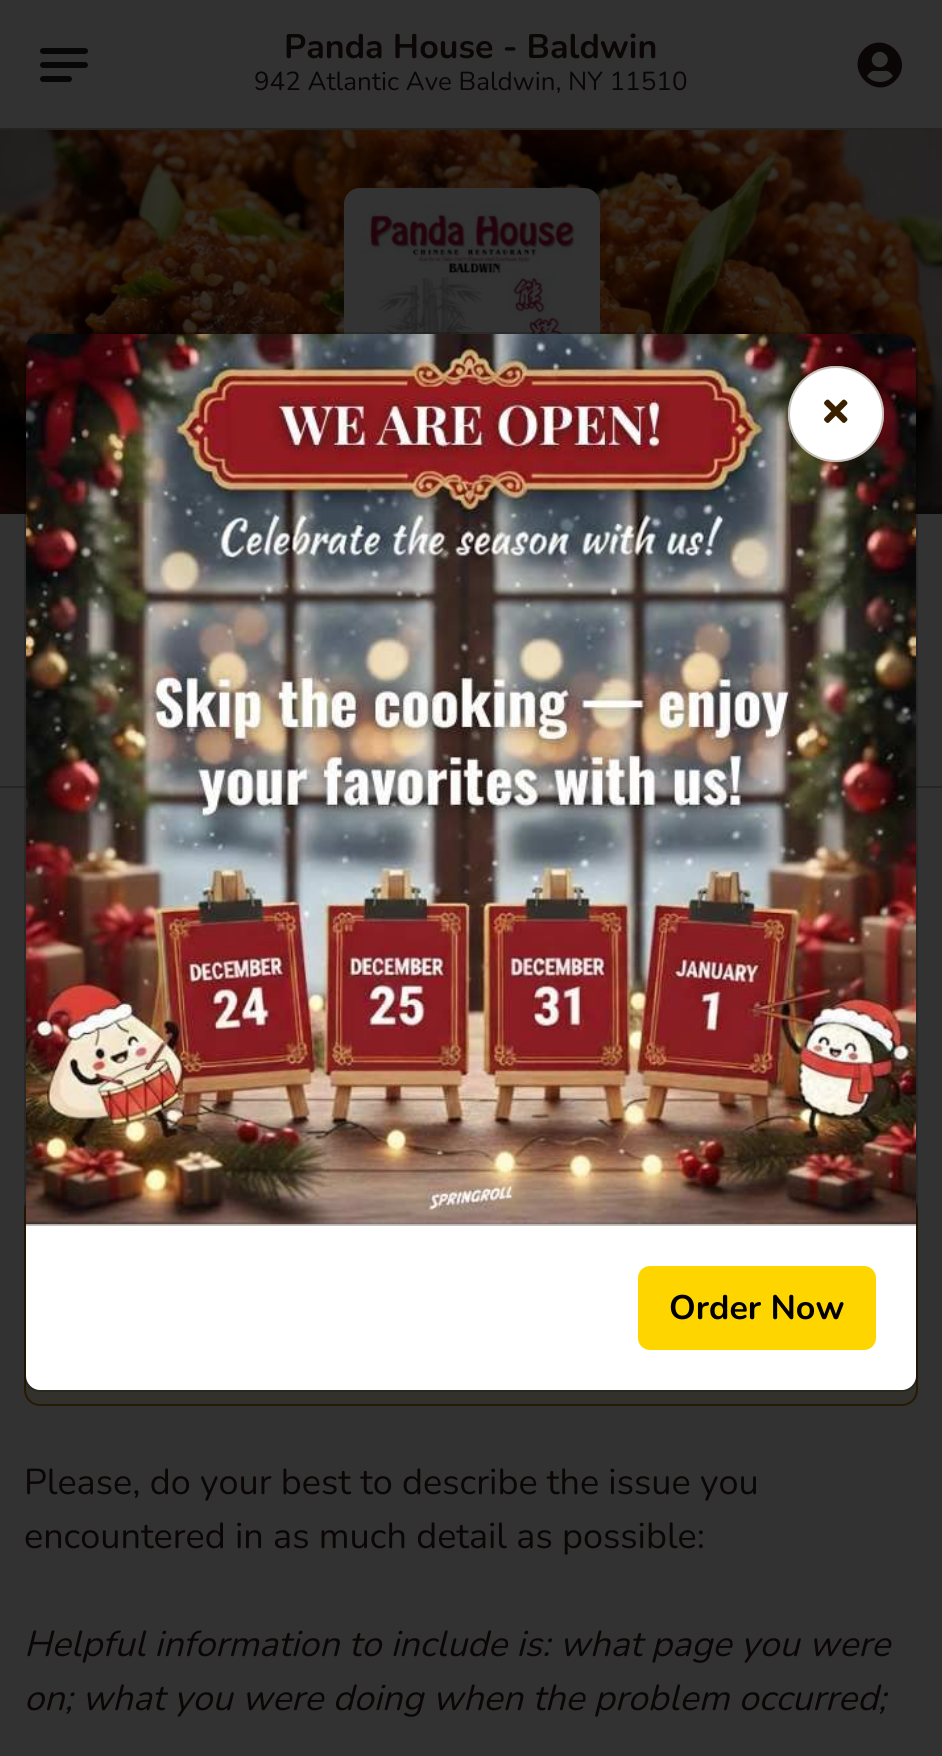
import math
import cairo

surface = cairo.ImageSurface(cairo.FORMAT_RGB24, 942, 1756)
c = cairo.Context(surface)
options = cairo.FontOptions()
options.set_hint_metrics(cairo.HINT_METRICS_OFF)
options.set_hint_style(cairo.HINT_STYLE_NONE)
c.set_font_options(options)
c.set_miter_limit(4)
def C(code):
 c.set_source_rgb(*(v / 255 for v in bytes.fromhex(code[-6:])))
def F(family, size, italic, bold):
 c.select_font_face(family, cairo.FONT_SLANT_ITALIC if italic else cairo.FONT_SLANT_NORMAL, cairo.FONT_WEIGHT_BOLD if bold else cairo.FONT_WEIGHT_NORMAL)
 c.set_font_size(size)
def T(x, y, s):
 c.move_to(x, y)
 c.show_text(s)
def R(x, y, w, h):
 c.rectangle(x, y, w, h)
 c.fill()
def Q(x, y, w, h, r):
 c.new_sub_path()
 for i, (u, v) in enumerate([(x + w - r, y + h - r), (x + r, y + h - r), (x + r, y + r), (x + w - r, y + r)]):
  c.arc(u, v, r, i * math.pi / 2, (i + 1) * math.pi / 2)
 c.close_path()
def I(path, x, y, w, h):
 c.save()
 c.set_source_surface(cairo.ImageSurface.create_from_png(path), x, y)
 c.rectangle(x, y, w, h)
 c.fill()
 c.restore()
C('323232')
c.paint()
C('242320')
R(0,128,942,2)
C('070708')
Q(40,48,48,6,3)
c.fill()
Q(40,62,48,6,3)
c.fill()
Q(40,76,32,6,3)
c.fill()
F('Nunito',34,0,1)
C('0a0605')
T(284,58,'Panda House - Baldwin')
F('Nunito',26,0,0)
T(254,90,'942 Atlantic Ave Baldwin, NY 11510')
c.new_path()
c.move_to(864,49)
c.curve_to(885,29,916,60,895,81)
c.curve_to(875,101,844,70,864,49)
c.close_path()
c.move_to(885,54)
c.curve_to(878,47,867,58,874,65)
c.curve_to(882,72,893,61,885,54)
c.close_path()
c.move_to(867,76)
c.curve_to(874,84,886,84,893,76)
c.curve_to(891,73,888,70,884,71)
c.line_to(880,71)
c.line_to(876,71)
c.curve_to(872,70,869,73,867,76)
c.close_path()
c.fill()
C('272625')
R(0,786,942,2)
I('1.png',0,130,942,384)
C('333333')
Q(344,188,256,266,16)
c.fill()
I('2.png',360,205,220,129)
C('33312b')
Q(25,1195,892,210,15)
c.fill_preserve()
C('271902')
c.stroke()
F('Nunito',36,0,0)
C('0a0605')
T(24,1494,'Please, do your best to describe the issue you')
T(24,1548,'encountered in as much detail as possible:')
F('Nunito',36,1,0)
T(24,1656,'Helpful information to include is: what page you were')
T(24,1710,'on; what you were doing when the problem occurred;')
Q(25,333,892,1058,15)
c.set_source_rgba(0,0,0,0.18)
c.stroke()
C('ffffff')
c.new_path()
c.move_to(26,1224)
c.line_to(916,1224)
c.line_to(916,1376)
c.curve_to(916,1383.5,909.5,1390,902,1390)
c.line_to(40,1390)
c.curve_to(32.5,1390,26,1383.5,26,1376)
c.close_path()
c.fill()
C('c4c0b7')
R(26,1224,890,2)
I('3.png',26,334,890,891)
C('ffffff')
c.arc(836,414,48,0,2 * math.pi)
c.fill()
c.arc(836,414,47,0,2 * math.pi)
c.set_source_rgba(0.58,0.553,0.486,0.55)
c.stroke()
I('4.png',824,399,24,24)
C('ffd500')
Q(639,1267,236,82,11)
c.fill_preserve()
c.stroke()
F('Nunito',34,0,1)
C('000000')
T(669,1319,'Order Now')
surface.write_to_png('o.png')
